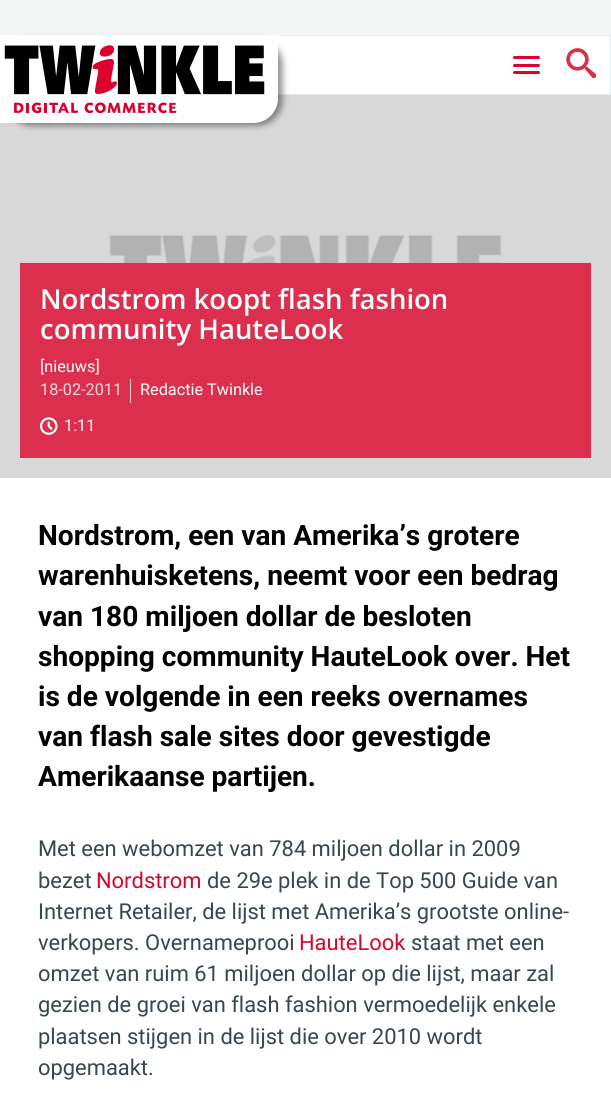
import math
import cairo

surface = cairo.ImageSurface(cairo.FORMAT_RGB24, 611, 1114)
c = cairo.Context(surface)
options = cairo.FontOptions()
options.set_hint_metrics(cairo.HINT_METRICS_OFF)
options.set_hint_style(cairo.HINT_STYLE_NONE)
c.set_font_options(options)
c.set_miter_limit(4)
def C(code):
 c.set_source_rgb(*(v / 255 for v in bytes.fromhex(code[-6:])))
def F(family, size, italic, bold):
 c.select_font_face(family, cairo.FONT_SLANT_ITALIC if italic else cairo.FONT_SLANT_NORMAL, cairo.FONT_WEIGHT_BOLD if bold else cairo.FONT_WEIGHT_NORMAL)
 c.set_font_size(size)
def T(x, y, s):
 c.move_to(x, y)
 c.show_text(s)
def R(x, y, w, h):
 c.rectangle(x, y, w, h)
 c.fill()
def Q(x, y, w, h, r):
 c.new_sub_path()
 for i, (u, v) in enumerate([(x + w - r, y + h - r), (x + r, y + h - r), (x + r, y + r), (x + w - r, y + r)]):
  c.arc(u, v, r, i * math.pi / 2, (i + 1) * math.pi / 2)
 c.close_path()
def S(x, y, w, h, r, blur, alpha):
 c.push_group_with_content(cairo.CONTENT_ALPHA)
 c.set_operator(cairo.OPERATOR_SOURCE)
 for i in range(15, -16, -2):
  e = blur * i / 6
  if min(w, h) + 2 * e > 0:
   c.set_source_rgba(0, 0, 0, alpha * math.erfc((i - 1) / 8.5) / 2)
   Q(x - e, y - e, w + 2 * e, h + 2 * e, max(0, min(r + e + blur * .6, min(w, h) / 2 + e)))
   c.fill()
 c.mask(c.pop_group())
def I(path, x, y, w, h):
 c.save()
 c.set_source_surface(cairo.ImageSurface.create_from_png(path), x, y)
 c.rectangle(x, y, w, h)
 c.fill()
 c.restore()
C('f4f5f5')
c.paint()
C('ffffff')
R(278,36,332,58)
C('eeeeee')
R(271,35,340,1)
C('e6ebef')
R(610,35,1,60)
R(271,94,340,1)
I('3.png',0,95,611,383)
C('000000')
S(5,39,278,87,25,3,.4)
C('ffffff')
c.new_path()
c.move_to(0,35)
c.line_to(278,35)
c.line_to(278,98)
c.curve_to(278,112,267,123,253,123)
c.line_to(0,123)
c.close_path()
c.fill()
I('1.png',4,45,261,69)
C('dc042b')
Q(513,56,27,3,1.5)
c.fill()
Q(513,64,27,3,1.5)
c.fill()
Q(513,71,27,3,1.5)
c.fill()
I('2.png',566,48,31,31)
C('ffffff')
R(0,478,611,636)
C('db2f4d')
R(20,263,571,195)
F('Open Sans SemiBold',27.5,0,0)
C('ffffff')
T(40,309,'Nordstrom koopt flash fashion')
T(40,339,'community HauteLook')
F('Roboto',16.25,0,0)
T(40,372,'[nieuws]')
C('f8d5db')
R(130,379,1,24)
T(40,395,'18-02-2011')
C('ffffff')
T(140,395,'Redactie Twinkle')
I('4.png',40,417,18,18)
T(64,431,'1:11')
F('Roboto',28.1,0,1)
C('000000')
T(38,545,'Nordstrom, een van Amerika’s grotere')
T(38,585,'warenhuisketens, neemt voor een bedrag')
T(38,626,'van 180 miljoen dollar de besloten')
T(38,666,'shopping community HauteLook over. Het')
T(38,706,'is de volgende in een reeks overnames')
T(38,746,'van flash sale sites door gevestigde')
T(38,786,'Amerikaanse partijen.')
F('Roboto',21.9,0,0)
C('37474f')
T(38,856,'Met een webomzet van 784 miljoen dollar in 2009')
T(38,888,'bezet')
C('dc042b')
T(96,888,'Nordstrom')
C('37474f')
T(207,888,'de 29e plek in de Top 500 Guide van')
T(38,919,'Internet Retailer, de lijst met Amerika’s grootste online-')
T(38,950,'verkopers. Overnameprooi')
C('dc042b')
T(299,950,'HauteLook')
C('37474f')
T(411,950,'staat met een')
T(38,981,'omzet van ruim 61 miljoen dollar op die lijst, maar zal')
T(38,1012,'gezien de groei van flash fashion vermoedelijk enkele')
T(38,1044,'plaatsen stijgen in de lijst die over 2010 wordt')
T(38,1075,'opgemaakt.')
surface.write_to_png('o.png')
